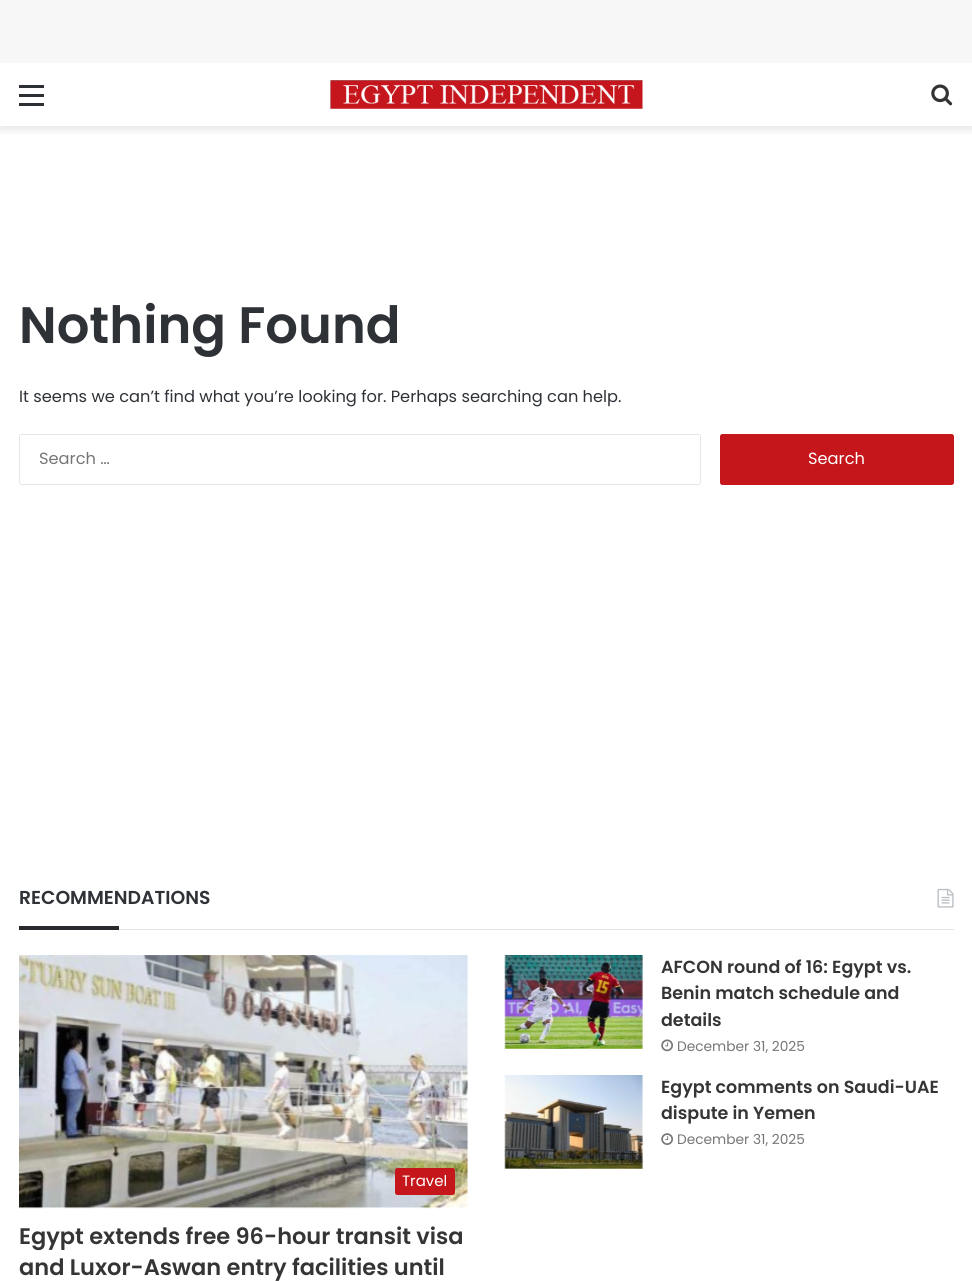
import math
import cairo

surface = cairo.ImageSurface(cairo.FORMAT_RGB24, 972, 1281)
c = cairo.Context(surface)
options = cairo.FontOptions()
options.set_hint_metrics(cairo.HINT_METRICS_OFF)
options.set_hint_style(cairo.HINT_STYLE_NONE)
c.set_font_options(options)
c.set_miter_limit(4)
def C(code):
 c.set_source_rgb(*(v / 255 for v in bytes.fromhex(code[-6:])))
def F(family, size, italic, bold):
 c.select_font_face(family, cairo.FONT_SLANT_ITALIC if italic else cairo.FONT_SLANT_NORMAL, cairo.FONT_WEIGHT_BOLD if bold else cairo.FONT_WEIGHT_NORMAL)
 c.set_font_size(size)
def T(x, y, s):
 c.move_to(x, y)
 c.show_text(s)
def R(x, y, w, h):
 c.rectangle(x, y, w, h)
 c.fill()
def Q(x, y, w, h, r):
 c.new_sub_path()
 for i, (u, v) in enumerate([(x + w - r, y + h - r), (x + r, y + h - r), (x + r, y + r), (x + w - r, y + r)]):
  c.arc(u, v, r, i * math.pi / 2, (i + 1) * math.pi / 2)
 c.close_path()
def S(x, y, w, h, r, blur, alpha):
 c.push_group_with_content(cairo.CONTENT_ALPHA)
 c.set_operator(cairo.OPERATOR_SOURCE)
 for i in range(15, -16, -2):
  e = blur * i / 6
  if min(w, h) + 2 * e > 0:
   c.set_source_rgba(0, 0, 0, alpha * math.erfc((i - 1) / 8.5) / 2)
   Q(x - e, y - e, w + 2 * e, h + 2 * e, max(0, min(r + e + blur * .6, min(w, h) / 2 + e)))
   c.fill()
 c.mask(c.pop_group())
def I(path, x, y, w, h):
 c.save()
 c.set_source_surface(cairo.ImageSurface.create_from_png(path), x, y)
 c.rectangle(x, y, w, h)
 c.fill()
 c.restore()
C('f7f7f7')
c.paint()
C('ffffff')
R(0,63,972,1218)
c.save()
c.rectangle(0,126,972,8)
c.clip()
C('000000')
S(0,66,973,64,0,4.5,.1)
c.restore()
C('2c2f34')
R(19,94,25,3)
R(19,85,25,3)
R(19,103,25,3)
I('1.png',330,80,313,29)
I('2.png',931,84,22,22)
F('Poppins SemiBold',51.25,0,0)
C('2e3136')
T(19,343,'Nothing Found')
F('Poppins',16.25,0,0)
T(19,402,'It seems we can’t find what you’re looking for. Perhaps searching can help.')
Q(19.5,434.5,681,50,2)
C('e6e6e6')
c.set_line_width(1)
c.stroke()
C('767676')
T(39,464,'Search …')
C('c4161b')
Q(720,434,234,51,2.5)
c.fill()
C('ffffff')
T(808,464,'Search')
C('e6e6e6')
R(119,929,835,1)
F('Poppins SemiBold',18.75,0,0)
C('2e3136')
T(19,904,'RECOMMENDATIONS')
I('3.png',937,888,17,20)
C('292b2f')
R(19,926,100,4)
I('4.png',504,955,139,94)
F('Poppins SemiBold',17.5,0,0)
C('353535')
T(661,973,'AFCON round of 16: Egypt vs.')
T(661,999,'Benin match schedule and')
T(661,1026,'details')
I('5.png',661,1039,12,13)
F('Poppins',13.75,0,0)
C('767676')
T(677,1051,'December 31, 2025')
I('6.png',504,1075,139,94)
F('Poppins SemiBold',17.5,0,0)
C('353535')
T(661,1093,'Egypt comments on Saudi-UAE')
T(661,1119,'dispute in Yemen')
I('7.png',661,1133,12,12)
F('Poppins',13.75,0,0)
C('767676')
T(677,1144,'December 31, 2025')
I('8.png',19,955,449,254)
C('c4161b')
Q(395,1168,60,27,2.5)
c.fill()
F('Poppins',15,0,0)
C('ffffff')
T(402,1186,'Travel')
F('Poppins SemiBold',22.5,0,0)
C('353535')
T(19,1244,'Egypt extends free 96-hour transit visa')
T(19,1275,'and Luxor-Aswan entry facilities until')
surface.write_to_png('o.png')
